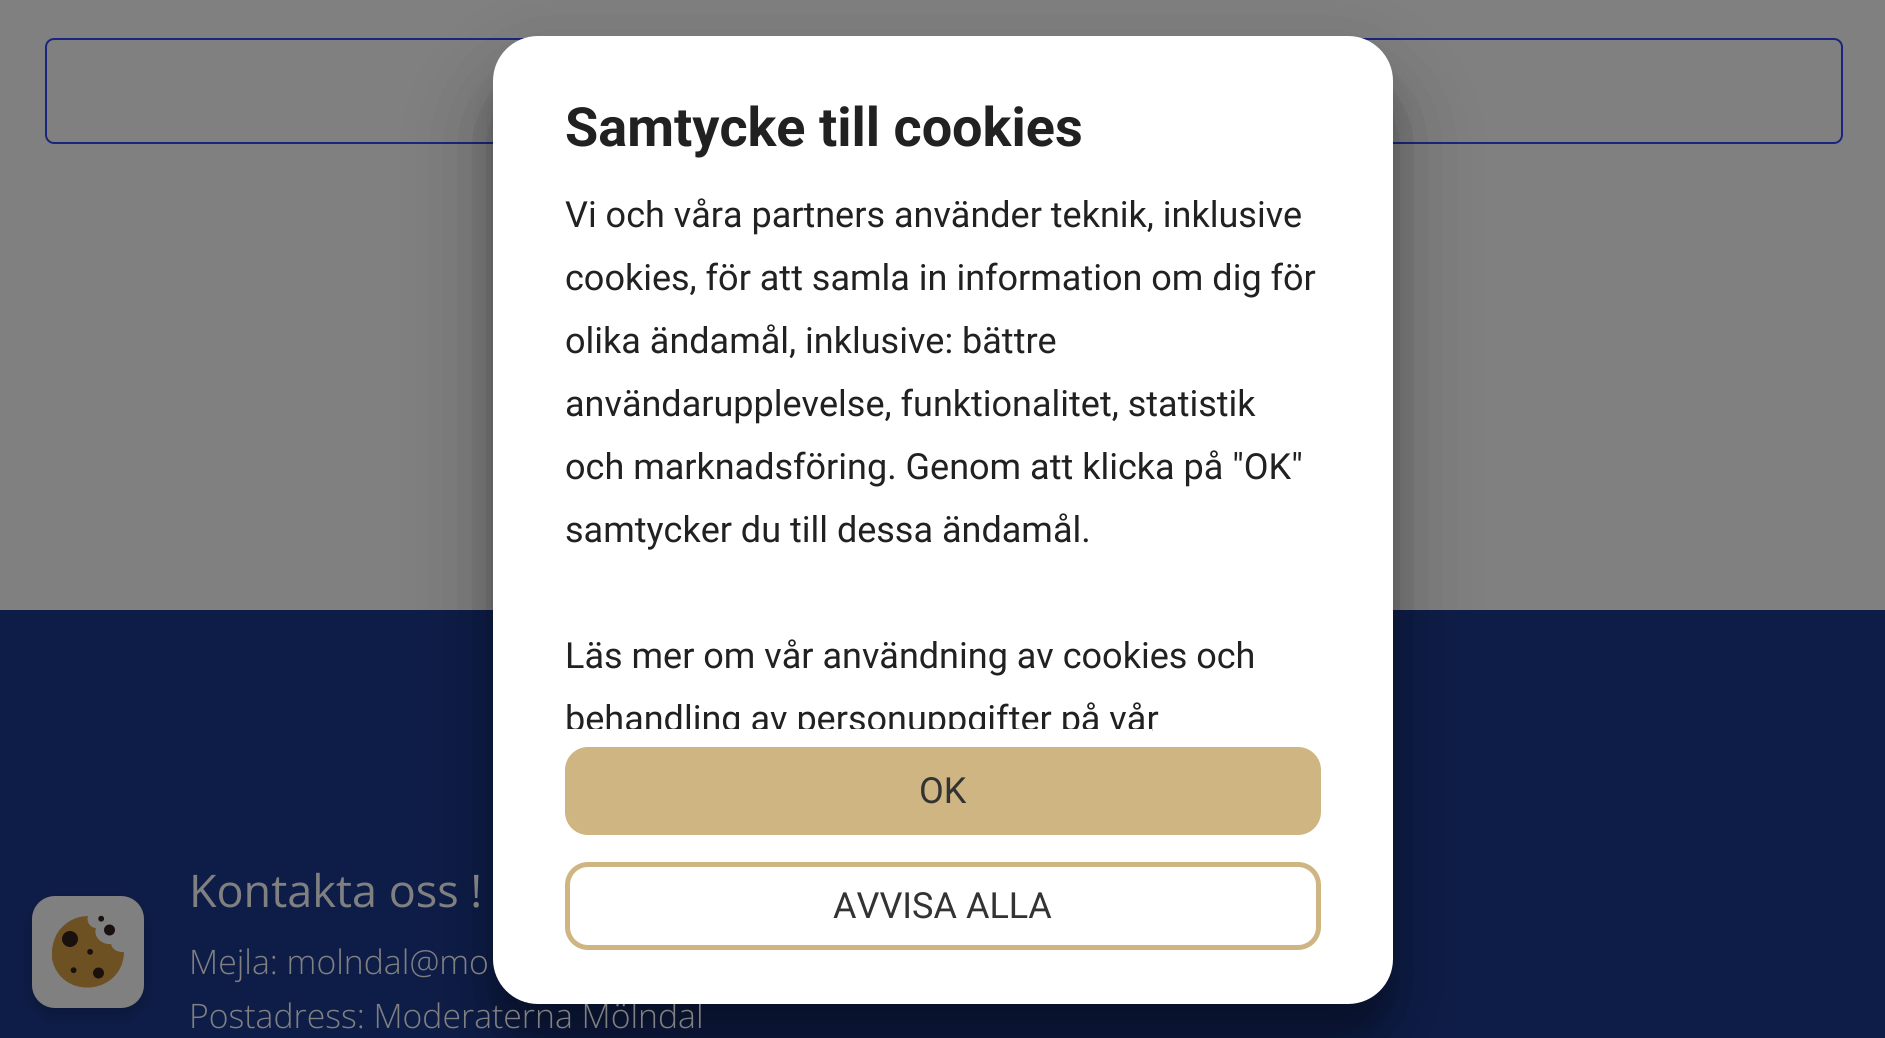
import math
import cairo

surface = cairo.ImageSurface(cairo.FORMAT_RGB24, 1885, 1038)
c = cairo.Context(surface)
options = cairo.FontOptions()
options.set_hint_metrics(cairo.HINT_METRICS_OFF)
options.set_hint_style(cairo.HINT_STYLE_NONE)
c.set_font_options(options)
c.set_miter_limit(4)
def C(code):
 c.set_source_rgb(*(v / 255 for v in bytes.fromhex(code[-6:])))
def F(family, size, italic, bold):
 c.select_font_face(family, cairo.FONT_SLANT_ITALIC if italic else cairo.FONT_SLANT_NORMAL, cairo.FONT_WEIGHT_BOLD if bold else cairo.FONT_WEIGHT_NORMAL)
 c.set_font_size(size)
def T(x, y, s):
 c.move_to(x, y)
 c.show_text(s)
def R(x, y, w, h):
 c.rectangle(x, y, w, h)
 c.fill()
def Q(x, y, w, h, r):
 c.new_sub_path()
 for i, (u, v) in enumerate([(x + w - r, y + h - r), (x + r, y + h - r), (x + r, y + r), (x + w - r, y + r)]):
  c.arc(u, v, r, i * math.pi / 2, (i + 1) * math.pi / 2)
 c.close_path()
def S(x, y, w, h, r, blur, alpha):
 c.push_group_with_content(cairo.CONTENT_ALPHA)
 c.set_operator(cairo.OPERATOR_SOURCE)
 for i in range(15, -16, -2):
  e = blur * i / 6
  if min(w, h) + 2 * e > 0:
   c.set_source_rgba(0, 0, 0, alpha * math.erfc((i - 1) / 8.5) / 2)
   Q(x - e, y - e, w + 2 * e, h + 2 * e, max(0, min(r + e + blur * .6, min(w, h) / 2 + e)))
   c.fill()
 c.mask(c.pop_group())
C('808080')
c.paint()
Q(46,39,1796,104,8)
C('1a2580')
c.stroke()
C('0e1d48')
R(0,610,1885,428)
C('000000')
S(493,70,900,967,45,13.5,.22)
S(493,79,900,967,45,43,.3)
F('Open Sans Light',33.75,0,0)
C('808080')
T(189,1028,'Postadress: Moderaterna Mölndal')
C('ffffff')
Q(493,36,900,968,45)
c.fill()
F('Roboto',54,0,1)
C('212121')
T(565,146,'Samtycke till cookies')
F('Roboto',36,0,0)
T(565,227,'Vi och våra partners använder teknik, inklusive')
T(565,290,'cookies, för att samla in information om dig för')
T(565,353,'olika ändamål, inklusive: bättre')
T(565,416,'användarupplevelse, funktionalitet, statistik')
T(565,479,'och marknadsföring. Genom att klicka på "OK"')
T(565,542,'samtycker du till dessa ändamål.')
T(565,668,'Läs mer om vår användning av cookies och')
T(565,731,'behandling av personuppgifter på vår')
C('ffffff')
R(567,729,585,10)
C('ceb582')
Q(567.5,749.5,751,83,20.5)
c.fill_preserve()
c.set_line_width(5)
c.stroke()
C('333333')
T(919,803,'OK')
Q(567.5,864.5,751,83,20.5)
C('ceb582')
c.stroke()
C('333333')
T(833,918,'AVVISA ALLA')
C('000000')
S(32,902,112,113,23,7,.23)
C('808080')
Q(32,896,112,112,23)
c.fill()
c.save()
c.rectangle(52,916,72,72)
c.clip()
C('6d5123')
c.new_path()
c.move_to(122,952)
c.curve_to(117,952,112,949,111,944)
c.curve_to(102,945,93,937,96,928)
c.curve_to(90,928,86,921,88,916)
c.curve_to(76,916,65,922,58,932)
c.curve_to(53,940,51,950,52,959)
c.curve_to(61,1001,123,995,124,952)
c.close_path()
c.fill()
c.restore()
C('1a100d')
c.arc(109.5,930,5.5,0,2 * math.pi)
c.fill()
c.arc(98.5,973,5.5,0,2 * math.pi)
c.fill()
c.arc(70,939,8,0,2 * math.pi)
c.fill()
c.arc(101.2,918.7,2.9,0,2 * math.pi)
c.fill()
c.arc(90.1,951.8,2.9,0,2 * math.pi)
c.fill()
c.arc(73.6,970.2,2.9,0,2 * math.pi)
c.fill()
F('Open Sans',45,0,0)
C('808080')
T(189,907,'Kontakta oss !')
F('Open Sans Light',33.75,0,0)
T(189,974,'Mejla: molndal@mo')
surface.write_to_png('o.png')
